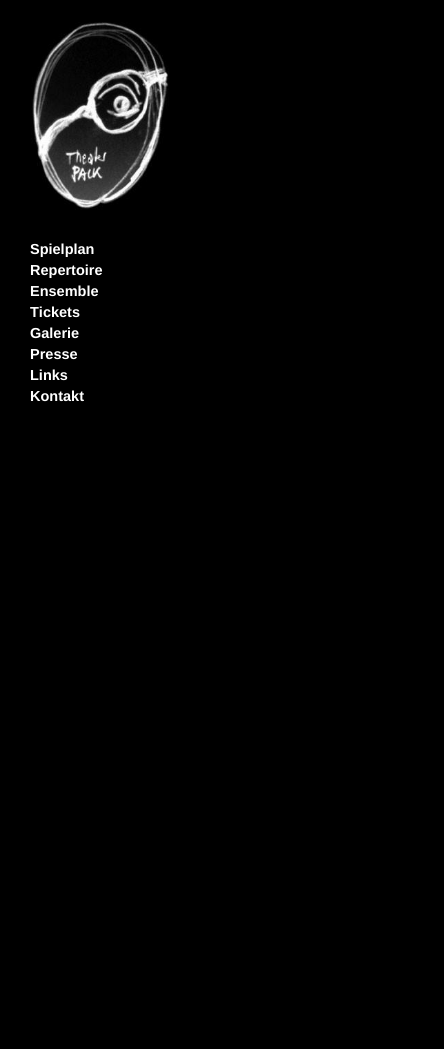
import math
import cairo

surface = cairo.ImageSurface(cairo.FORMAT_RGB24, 444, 1049)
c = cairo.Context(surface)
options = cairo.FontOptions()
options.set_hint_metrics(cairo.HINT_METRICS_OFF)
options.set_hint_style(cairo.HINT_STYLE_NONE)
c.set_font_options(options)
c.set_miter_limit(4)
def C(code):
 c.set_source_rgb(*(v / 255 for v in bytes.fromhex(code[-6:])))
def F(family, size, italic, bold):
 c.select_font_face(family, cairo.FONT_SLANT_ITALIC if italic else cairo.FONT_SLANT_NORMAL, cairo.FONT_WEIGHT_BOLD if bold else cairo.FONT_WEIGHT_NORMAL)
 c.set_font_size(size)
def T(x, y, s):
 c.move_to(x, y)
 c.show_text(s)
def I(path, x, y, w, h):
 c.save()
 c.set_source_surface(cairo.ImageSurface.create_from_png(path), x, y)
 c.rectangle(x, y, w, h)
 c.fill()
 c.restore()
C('000000')
c.paint()
I('1.png',31,22,138,188)
F('Liberation Sans',14.5,0,1)
C('ffffff')
T(30,254,'Spielplan')
T(30,275,'Repertoire')
T(30,296,'Ensemble')
T(30,317,'Tickets')
T(30,338,'Galerie')
T(30,359,'Presse')
T(30,380,'Links')
T(30,401,'Kontakt')
surface.write_to_png('o.png')
